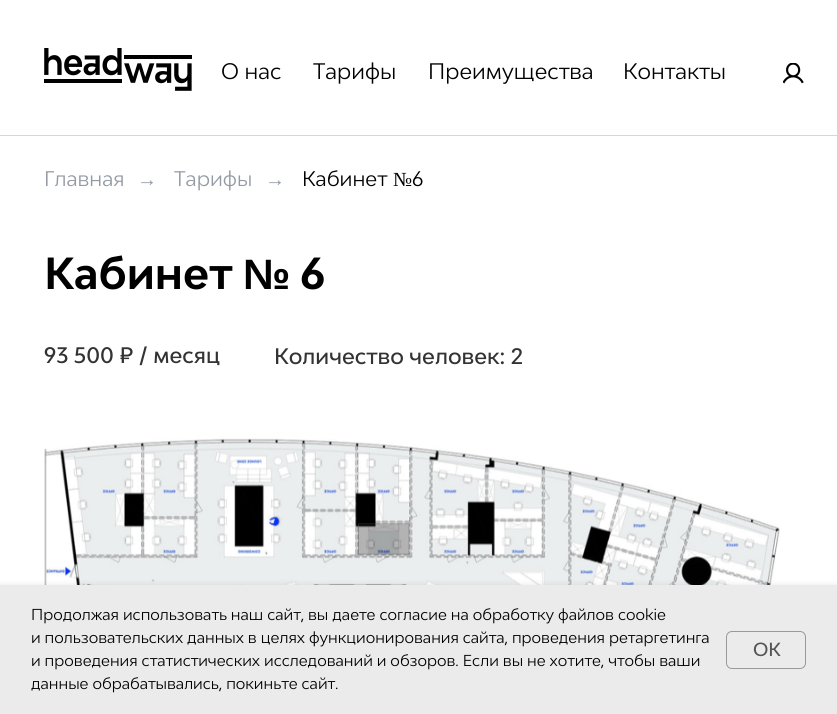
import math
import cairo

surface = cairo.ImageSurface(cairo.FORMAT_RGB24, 837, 714)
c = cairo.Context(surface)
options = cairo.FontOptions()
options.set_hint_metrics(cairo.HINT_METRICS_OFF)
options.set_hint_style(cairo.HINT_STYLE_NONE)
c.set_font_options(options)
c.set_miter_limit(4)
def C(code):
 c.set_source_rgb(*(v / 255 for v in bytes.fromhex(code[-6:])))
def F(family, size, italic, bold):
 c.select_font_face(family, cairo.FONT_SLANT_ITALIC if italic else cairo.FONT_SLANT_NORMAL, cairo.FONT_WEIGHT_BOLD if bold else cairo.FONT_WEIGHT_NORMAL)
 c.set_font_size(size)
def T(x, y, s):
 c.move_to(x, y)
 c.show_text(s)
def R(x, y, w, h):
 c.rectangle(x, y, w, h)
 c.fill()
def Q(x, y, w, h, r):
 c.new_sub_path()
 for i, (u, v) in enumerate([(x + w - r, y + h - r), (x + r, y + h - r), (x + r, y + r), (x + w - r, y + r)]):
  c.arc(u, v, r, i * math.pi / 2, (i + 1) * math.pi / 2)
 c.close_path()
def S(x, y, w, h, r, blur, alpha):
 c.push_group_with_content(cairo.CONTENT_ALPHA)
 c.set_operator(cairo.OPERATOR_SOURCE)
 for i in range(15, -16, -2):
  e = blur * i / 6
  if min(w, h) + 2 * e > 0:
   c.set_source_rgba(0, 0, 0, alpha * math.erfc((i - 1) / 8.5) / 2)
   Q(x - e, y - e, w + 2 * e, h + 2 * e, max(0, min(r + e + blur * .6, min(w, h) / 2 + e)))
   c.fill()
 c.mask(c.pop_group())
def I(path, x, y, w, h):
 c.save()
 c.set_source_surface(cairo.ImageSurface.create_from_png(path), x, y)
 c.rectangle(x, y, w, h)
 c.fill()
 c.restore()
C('ffffff')
c.paint()
I('1.png',44,48,148,43)
F('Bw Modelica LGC',21.25,0,0)
C('000000')
T(221,79,'О нас')
T(313,79,'Тарифы')
T(428,79,'Преимущества')
T(623,79,'Контакты')
I('2.png',783,63,21,21)
C('d4d7da')
R(0,135,837,1)
F('Bw Modelica LGC',20,0,0)
C('939aa3')
T(44,186,'Главная')
F('Liberation Serif',20,0,0)
T(137,186,'→')
F('Bw Modelica LGC',20,0,0)
T(174,186,'Тарифы')
F('Liberation Serif',20,0,0)
T(265,186,'→')
F('Bw Modelica LGC',20,0,0)
C('000000')
T(302,186,'Кабинет')
F('Liberation Serif',20,0,0)
T(393,186,'№')
F('Bw Modelica LGC',20,0,0)
T(412,186,'6')
F('Bw Modelica LGC',42.5,0,1)
T(44,289,'Кабинет')
F('Liberation Sans',42.5,0,1)
T(243,289,'№')
F('Bw Modelica LGC',42.5,0,1)
T(300,289,'6')
F('Bw Modelica LGC Medium',21.25,0,0)
C('333333')
T(44,363,'93 500 ₽ / месяц')
T(274,364,'Количество человек: 2')
I('3.png',44,438,736,147)
C('000000')
S(0,585,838,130,0,3,.1)
C('ebebeb')
R(0,585,837,129)
F('Bw Modelica LGC',15,0,0)
C('000000')
T(31,620,'Продолжая использовать наш сайт, вы даете согласие на обработку файлов cookie')
T(31,643,'и пользовательских данных в целях функционирования сайта, проведения ретаргетинга')
T(31,666,'и проведения статистических исследований и обзоров. Если вы не хотите, чтобы ваши')
T(31,689,'данные обрабатывались, покиньте сайт.')
Q(726.5,631.5,79,37,5.5)
C('999999')
c.set_line_width(1)
c.stroke()
F('Bw Modelica LGC Medium',18,0,0)
C('555555')
T(753,656,'OK')
surface.write_to_png('o.png')
